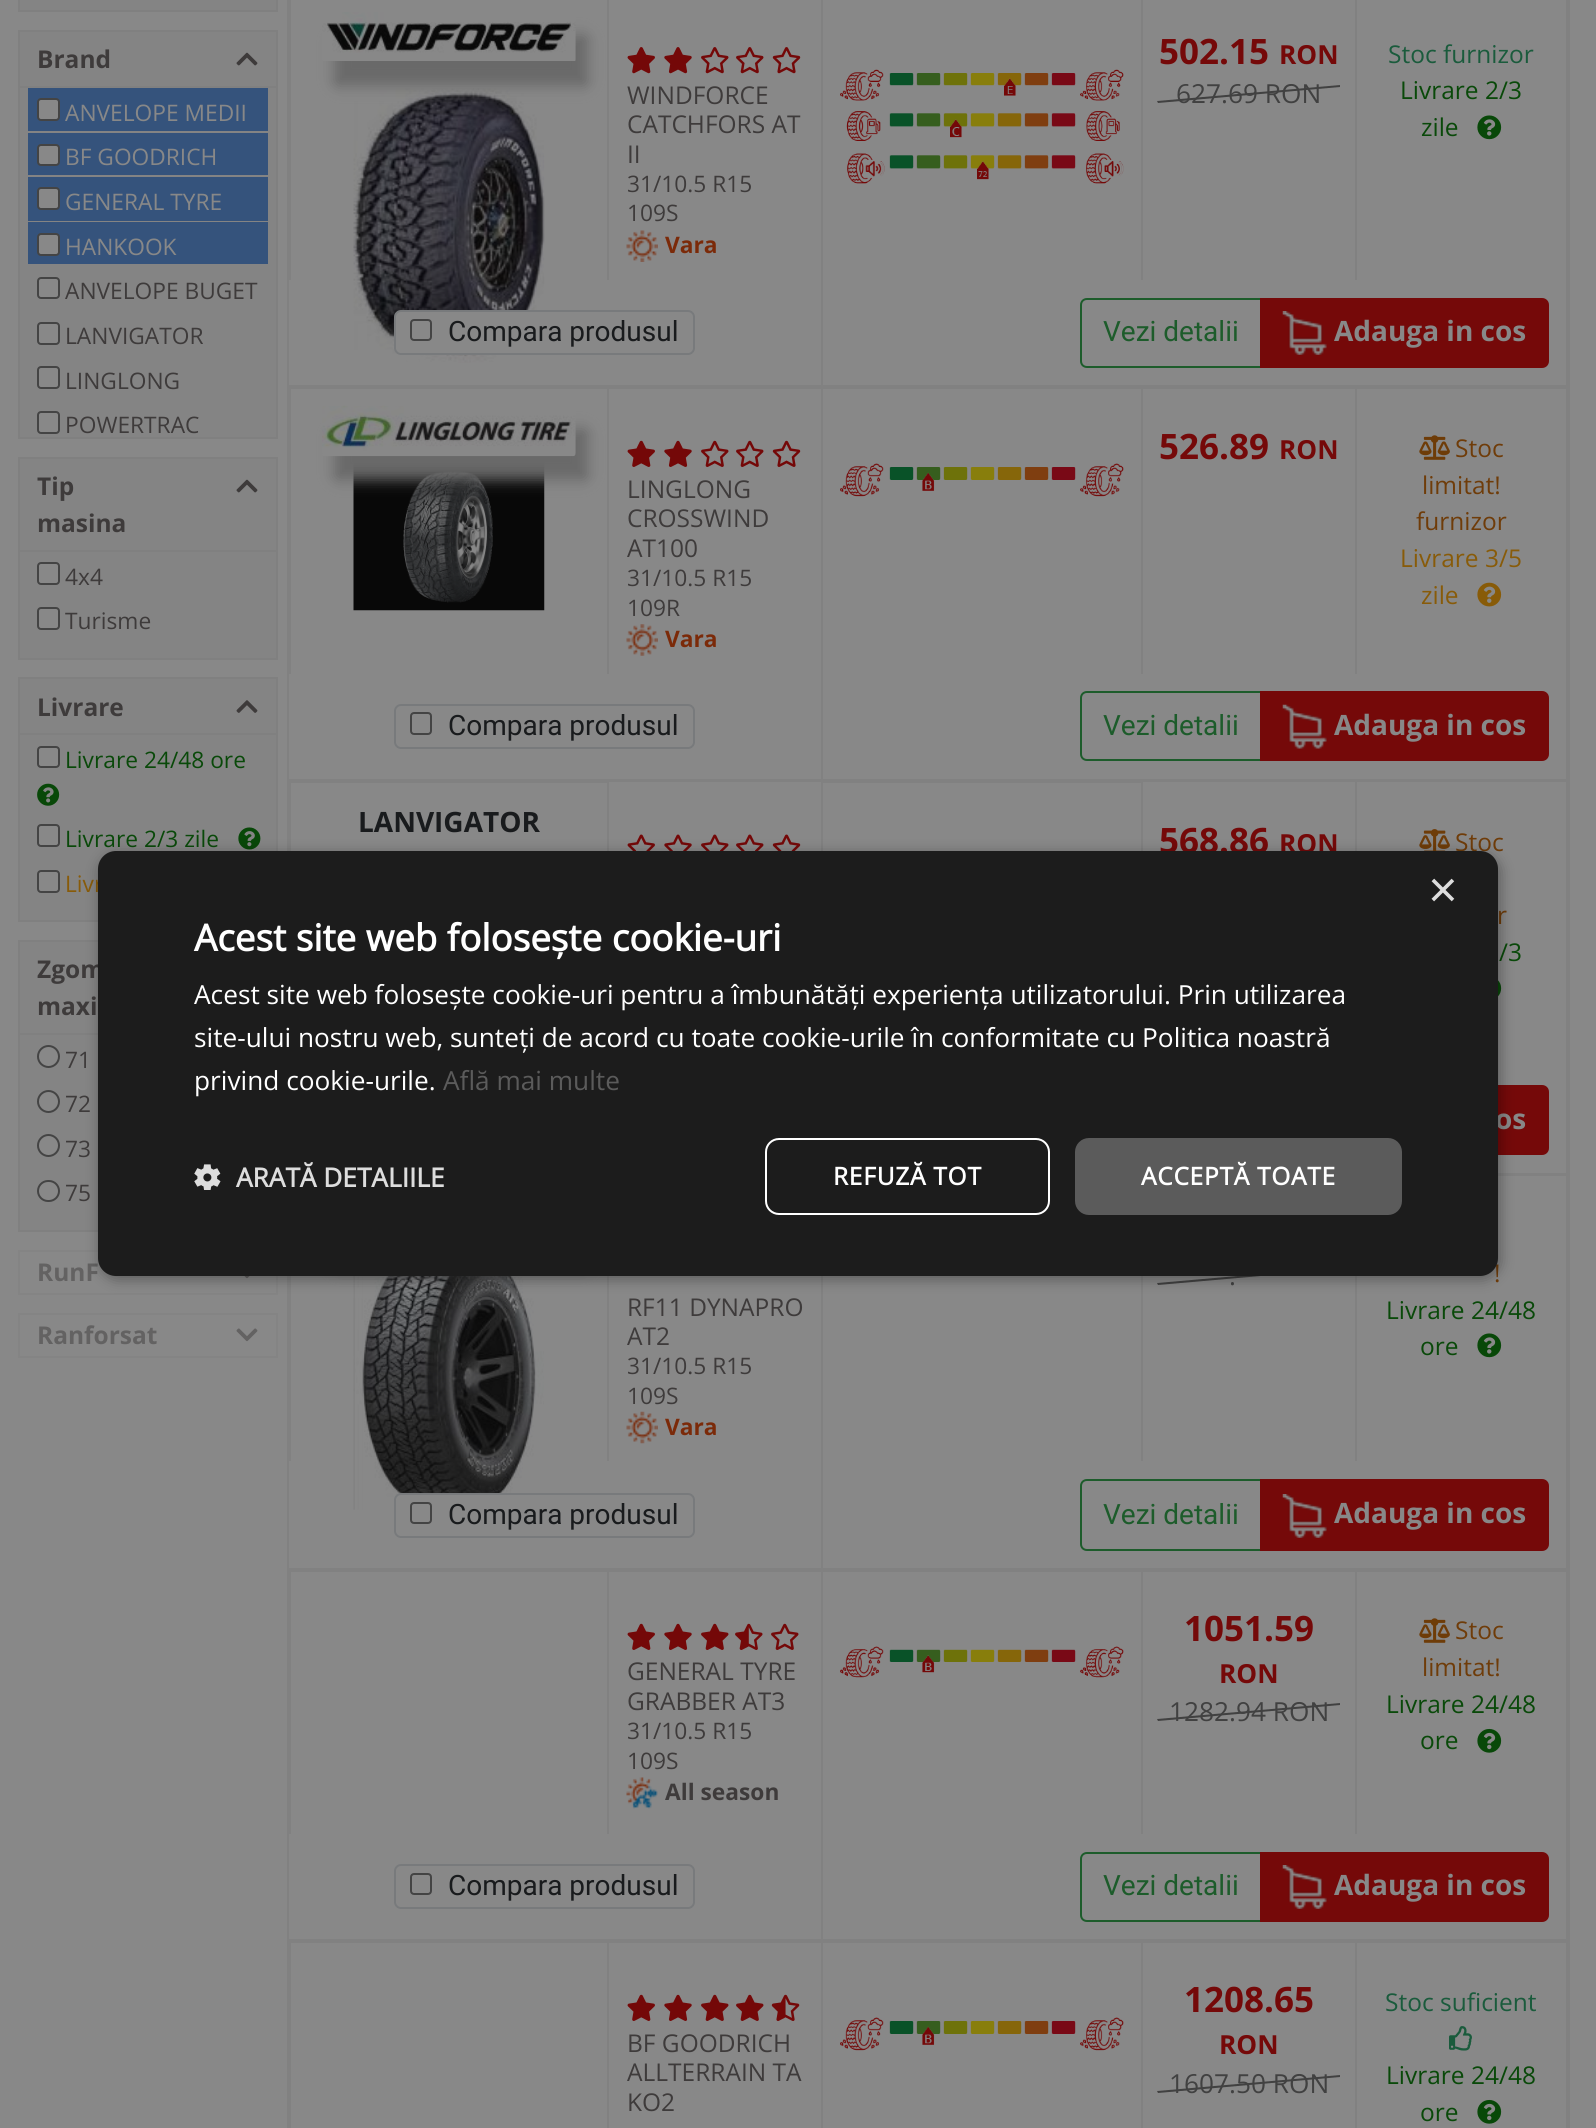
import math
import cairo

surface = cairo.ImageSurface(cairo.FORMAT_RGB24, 1596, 2128)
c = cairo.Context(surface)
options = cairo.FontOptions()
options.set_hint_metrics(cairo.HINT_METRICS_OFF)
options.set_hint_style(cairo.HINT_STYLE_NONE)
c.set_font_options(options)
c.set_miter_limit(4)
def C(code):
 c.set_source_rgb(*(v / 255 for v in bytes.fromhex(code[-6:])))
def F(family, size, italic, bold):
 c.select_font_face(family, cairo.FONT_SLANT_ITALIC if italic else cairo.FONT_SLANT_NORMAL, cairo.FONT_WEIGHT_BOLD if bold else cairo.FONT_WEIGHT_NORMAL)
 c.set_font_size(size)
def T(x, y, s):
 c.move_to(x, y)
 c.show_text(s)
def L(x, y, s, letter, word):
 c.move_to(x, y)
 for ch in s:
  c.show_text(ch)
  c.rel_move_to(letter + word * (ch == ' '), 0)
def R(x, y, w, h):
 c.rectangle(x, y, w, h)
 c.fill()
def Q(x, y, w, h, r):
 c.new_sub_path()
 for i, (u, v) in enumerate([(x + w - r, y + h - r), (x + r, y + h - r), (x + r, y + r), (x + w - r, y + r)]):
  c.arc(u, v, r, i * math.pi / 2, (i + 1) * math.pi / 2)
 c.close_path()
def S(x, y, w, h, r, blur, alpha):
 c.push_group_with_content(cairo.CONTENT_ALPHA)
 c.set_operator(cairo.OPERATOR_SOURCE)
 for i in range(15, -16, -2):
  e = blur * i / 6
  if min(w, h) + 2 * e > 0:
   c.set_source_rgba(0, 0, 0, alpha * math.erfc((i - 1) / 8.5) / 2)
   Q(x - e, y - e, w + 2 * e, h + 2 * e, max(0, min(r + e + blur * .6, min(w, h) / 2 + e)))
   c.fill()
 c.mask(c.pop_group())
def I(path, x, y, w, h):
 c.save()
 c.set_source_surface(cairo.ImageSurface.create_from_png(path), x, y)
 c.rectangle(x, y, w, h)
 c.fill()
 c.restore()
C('888888')
c.paint()
C('848484')
c.rectangle(19,-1,258,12)
c.fill_preserve()
C('808080')
c.stroke()
C('848484')
c.rectangle(19,31,258,407)
c.fill_preserve()
C('808080')
c.stroke()
R(19,86,258,2)
F('Open Sans',24.5,0,1)
C('3e3b3b')
T(37,68,'Brand')
I('1.png',236,52,22,14)
C('35537c')
R(28,88,240,43)
C('888888')
Q(38,99,21,21,3)
c.fill_preserve()
C('444444')
c.stroke()
F('Open Sans',22.75,0,0)
C('888888')
T(65,121,'ANVELOPE MEDII')
C('35537c')
R(28,133,240,42)
C('888888')
Q(38,145,21,20,3)
c.fill_preserve()
C('444444')
c.stroke()
C('888888')
T(65,165,'BF GOODRICH')
C('35537c')
R(28,177,240,44)
C('888888')
Q(38,188,21,21,3)
c.fill_preserve()
C('444444')
c.stroke()
C('888888')
T(65,210,'GENERAL TYRE')
C('35537c')
R(28,222,240,42)
C('888888')
Q(38,234,21,21,3)
c.fill_preserve()
C('444444')
c.stroke()
C('888888')
T(65,255,'HANKOOK')
Q(38,278,21,20,3)
c.fill_preserve()
C('444444')
c.stroke()
C('3e3b3b')
T(65,299,'ANVELOPE BUGET')
C('888888')
Q(38,323,21,21,3)
c.fill_preserve()
C('444444')
c.stroke()
C('3e3b3b')
T(65,344,'LANVIGATOR')
C('888888')
Q(38,367,21,21,3)
c.fill_preserve()
C('444444')
c.stroke()
C('3e3b3b')
T(65,389,'LINGLONG')
C('888888')
Q(38,412,21,21,3)
c.fill_preserve()
C('444444')
c.stroke()
C('3e3b3b')
T(65,433,'POWERTRAC')
C('848484')
c.rectangle(19,458,258,201)
c.fill_preserve()
C('808080')
c.stroke()
R(19,550,258,2)
F('Open Sans',24.5,0,1)
C('3e3b3b')
T(37,495,'Tip')
T(37,532,'masina')
I('1.png',236,479,22,14)
C('888888')
Q(38,563,21,21,3)
c.fill_preserve()
C('444444')
c.stroke()
F('Open Sans',22.75,0,0)
C('3e3b3b')
T(65,585,'4x4')
C('888888')
Q(38,608,21,21,3)
c.fill_preserve()
C('444444')
c.stroke()
C('3e3b3b')
T(65,629,'Turisme')
C('848484')
c.rectangle(19,678,258,243)
c.fill_preserve()
C('808080')
c.stroke()
R(19,733,258,2)
F('Open Sans',24.5,0,1)
C('3e3b3b')
T(37,716,'Livrare')
I('2.png',236,700,22,13)
C('888888')
Q(38,747,21,20,3)
c.fill_preserve()
C('444444')
c.stroke()
F('Open Sans',22.75,0,0)
C('094909')
T(65,768,'Livrare 24/48 ore')
I('3.png',37,783,23,23)
C('888888')
Q(38,825,21,21,3)
c.fill_preserve()
C('444444')
c.stroke()
C('094909')
T(65,847,'Livrare 2/3 zile')
I('4.png',238,827,23,23)
C('888888')
Q(38,871,21,21,3)
c.fill_preserve()
C('444444')
c.stroke()
C('885b09')
T(65,892,'Livr')
C('848484')
R(20,942,78,288)
c.rectangle(19,941,258,290)
C('808080')
c.stroke()
R(19,1033,79,2)
F('Open Sans',24.5,0,1)
C('3e3b3b')
T(37,978,'Zgom')
T(37,1015,'maxi')
C('888888')
c.new_path()
c.arc(48.5,1056.5,10.5,0,2 * math.pi)
c.fill_preserve()
C('444444')
c.stroke()
F('Open Sans',22.75,0,0)
C('3e3b3b')
T(65,1068,'71')
C('888888')
c.new_path()
c.arc(48.5,1101.5,10.5,0,2 * math.pi)
c.fill_preserve()
C('444444')
c.stroke()
C('3e3b3b')
T(65,1112,'72')
C('888888')
c.new_path()
c.arc(48.5,1145.5,10.5,0,2 * math.pi)
c.fill_preserve()
C('444444')
c.stroke()
C('3e3b3b')
T(65,1157,'73')
C('888888')
Q(38,1181,21,20,10)
c.fill_preserve()
C('444444')
c.stroke()
C('3e3b3b')
T(65,1201,'75')
c.rectangle(19,1251,258,43)
C('848484')
c.stroke()
F('Open Sans',24.5,0,1)
C('636262')
T(37,1281,'RunF')
I('5.png',244,1276,6,3)
c.rectangle(19,1314,258,43)
C('848484')
c.stroke()
C('636262')
T(37,1344,'Ranforsat')
I('6.png',236,1328,22,14)
c.rectangle(288,-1,1281,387)
C('818181')
c.stroke()
R(289,0,2,280)
I('8.png',353,88,192,275)
C('696969')
S(334,35,254,51,4,7,1)
I('7.png',322,12,254,49)
C('818181')
R(607,0,2,280)
I('9.png',627,47,28,27)
I('10.png',664,47,28,27)
I('11.png',701,47,28,27)
I('11.png',736,47,28,27)
I('12.png',772,47,29,27)
F('Open Sans',24.5,0,0)
C('3e3b3b')
T(627,104,'WINDFORCE')
T(627,133,'CATCHFORS AT')
T(627,163,'II')
F('Open Sans',22.75,0,0)
T(627,192,'31/10.5 R15')
T(627,221,'109S')
I('13.png',626,230,32,32)
F('Open Sans',22.75,0,1)
C('7b2a09')
T(665,253,'Vara')
C('818181')
R(821,0,2,385)
I('14.png',840,69,284,32)
I('15.png',846,111,274,30)
I('16.png',847,153,277,31)
R(1141,0,2,280)
F('Open Sans',35,0,1)
C('750909')
T(1159,64,'502.15')
F('Open Sans',26.25,0,1)
T(1279,64,'RON')
F('Open Sans',26.25,0,0)
C('414141')
T(1176,103,'627.69 RON')
c.new_path()
c.move_to(1157,101)
c.line_to(1340,85)
c.line_to(1340,87)
c.line_to(1158,103)
c.close_path()
c.fill()
C('818181')
R(1566,0,2,385)
R(1355,0,2,280)
F('Open Sans',24.5,0,0)
C('1a5b3c')
T(1388,63,'Stoc furnizor')
C('094909')
T(1400,99,'Livrare 2/3')
T(1421,136,'zile')
I('17.png',1477,115,25,25)
C('888888')
Q(395,311,299,43,6)
c.fill_preserve()
C('787a7c')
c.stroke()
Q(411,320,20,20,3)
C('444444')
c.stroke()
F('Roboto',28,0,0)
C('191b1d')
T(448,341,'Compara produsul')
c.new_path()
c.move_to(1087,299)
c.line_to(1261,299)
c.line_to(1261,367)
c.line_to(1087,367)
c.curve_to(1083.5,367,1081,364.5,1081,361)
c.line_to(1081,305)
c.curve_to(1081,301.5,1083.5,299,1087,299)
c.close_path()
C('1d5c2b')
c.stroke()
T(1103,341,'Vezi detalii')
C('750909')
c.new_path()
c.move_to(1260,298)
c.line_to(1542,298)
c.curve_to(1546,298,1549,301,1549,305)
c.line_to(1549,361)
c.curve_to(1549,365,1546,368,1542,368)
c.line_to(1260,368)
c.close_path()
c.fill()
I('18.png',1282,311,45,44)
F('Open Sans',28,0,1)
C('888888')
T(1334,341,'Adauga in cos')
c.rectangle(288,388,1281,392)
C('818181')
c.stroke()
R(289,389,2,285)
I('20.png',353,456,192,155)
C('696969')
S(334,429,254,51,4,7,1)
I('19.png',322,405,254,52)
C('818181')
R(607,389,2,285)
I('21.png',627,440,28,27)
I('22.png',664,440,28,27)
I('23.png',701,440,28,27)
I('23.png',736,440,28,27)
I('24.png',772,440,29,27)
F('Open Sans',24.5,0,0)
C('3e3b3b')
T(627,498,'LINGLONG')
T(627,527,'CROSSWIND')
T(627,557,'AT100')
F('Open Sans',22.75,0,0)
T(627,586,'31/10.5 R15')
T(627,616,'109R')
I('25.png',626,624,32,32)
F('Open Sans',22.75,0,1)
C('7b2a09')
T(665,647,'Vara')
C('818181')
R(821,389,2,390)
I('26.png',840,463,284,34)
R(1141,389,2,285)
F('Open Sans',35,0,1)
C('750909')
T(1159,459,'526.89')
F('Open Sans',26.25,0,1)
T(1279,459,'RON')
C('818181')
R(1566,389,2,390)
R(1355,389,2,285)
I('27.png',1419,435,31,25)
F('Open Sans',24.5,0,0)
C('6f3c09')
T(1455,457,'Stoc')
T(1422,494,'limitat!')
T(1416,530,'furnizor')
C('885b09')
T(1400,567,'Livrare 3/5')
T(1421,604,'zile')
I('28.png',1477,582,25,25)
Q(395,705,299,43,6)
C('787a7c')
c.stroke()
Q(411,713,20,21,3)
C('444444')
c.stroke()
F('Roboto',28,0,0)
C('191b1d')
T(448,735,'Compara produsul')
c.new_path()
c.move_to(1087,692)
c.line_to(1261,692)
c.line_to(1261,760)
c.line_to(1087,760)
c.curve_to(1083.5,760,1081,757.5,1081,754)
c.line_to(1081,698)
c.curve_to(1081,694.5,1083.5,692,1087,692)
c.close_path()
C('1d5c2b')
c.stroke()
T(1103,735,'Vezi detalii')
C('750909')
c.new_path()
c.move_to(1260,691)
c.line_to(1542,691)
c.curve_to(1546,691,1549,694,1549,698)
c.line_to(1549,754)
c.curve_to(1549,758,1546,761,1542,761)
c.line_to(1260,761)
c.close_path()
c.fill()
I('29.png',1282,704,45,45)
F('Open Sans',28,0,1)
C('888888')
T(1334,735,'Adauga in cos')
c.rectangle(288,782,1281,391)
C('818181')
c.stroke()
R(289,782,2,69)
C('191b1d')
T(358,832,'LANVIGATOR')
C('888888')
R(609,782,212,1)
C('818181')
R(607,782,2,69)
I('30.png',627,834,28,17)
I('31.png',664,834,28,17)
I('32.png',701,834,28,17)
I('32.png',736,834,28,17)
I('33.png',772,834,29,17)
R(821,782,2,69)
C('888888')
R(1143,782,212,1)
C('818181')
R(1141,782,2,69)
F('Open Sans',35,0,1)
C('750909')
T(1159,853,'568.86')
F('Open Sans',26.25,0,1)
T(1279,853,'RON')
C('888888')
R(1357,782,209,1)
C('818181')
R(1566,782,2,391)
R(1355,782,2,69)
I('34.png',1419,829,31,22)
F('Open Sans',24.5,0,0)
C('6f3c09')
T(1455,851,'Stoc')
T(1497,924,'r')
C('094909')
T(1499,961,'/3')
I('35.png',1498,980,4,17)
C('888888')
R(1498,1172,68,1)
C('750909')
c.new_path()
c.move_to(1260,1085)
c.line_to(1542,1085)
c.curve_to(1546,1085,1549,1088,1549,1092)
c.line_to(1549,1148)
c.curve_to(1549,1152,1546,1155,1542,1155)
c.line_to(1260,1155)
c.close_path()
c.fill()
F('Open Sans',28,0,1)
C('888888')
T(1495,1129,'os')
c.rectangle(288,1175,1281,394)
C('818181')
c.stroke()
R(289,1276,2,185)
I('36.png',353,1276,191,234)
C('696969')
S(334,1216,254,53,4,7,1)
C('818181')
R(821,1276,2,292)
R(1141,1276,2,185)
C('414141')
c.new_path()
c.move_to(1157,1283)
c.line_to(1340,1267)
c.line_to(1340,1269)
c.line_to(1158,1285)
c.close_path()
c.fill()
F('Open Sans',26.25,0,0)
T(1229,1285,'.')
C('818181')
R(1566,1176,2,392)
R(1355,1276,2,185)
F('Open Sans',24.5,0,0)
C('6f3c09')
T(1494,1282,'!')
C('094909')
T(1386,1319,'Livrare 24/48')
T(1420,1355,'ore')
I('17.png',1477,1333,25,25)
C('818181')
R(607,1276,2,185)
C('3e3b3b')
T(627,1316,'RF11 DYNAPRO')
T(627,1345,'AT2')
F('Open Sans',22.75,0,0)
T(627,1374,'31/10.5 R15')
T(627,1404,'109S')
I('37.png',626,1411,32,33)
F('Open Sans',22.75,0,1)
C('7b2a09')
T(665,1435,'Vara')
C('888888')
Q(395,1494,299,43,6)
c.fill_preserve()
C('787a7c')
c.stroke()
Q(411,1503,20,20,3)
C('444444')
c.stroke()
F('Roboto',28,0,0)
C('191b1d')
T(448,1524,'Compara produsul')
c.new_path()
c.move_to(1087,1480)
c.line_to(1261,1480)
c.line_to(1261,1550)
c.line_to(1087,1550)
c.curve_to(1083.5,1550,1081,1547.5,1081,1544)
c.line_to(1081,1486)
c.curve_to(1081,1482.5,1083.5,1480,1087,1480)
c.close_path()
C('1d5c2b')
c.stroke()
T(1103,1524,'Vezi detalii')
C('750909')
c.new_path()
c.move_to(1260,1479)
c.line_to(1542,1479)
c.curve_to(1546,1479,1549,1482,1549,1486)
c.line_to(1549,1544)
c.curve_to(1549,1548,1546,1551,1542,1551)
c.line_to(1260,1551)
c.close_path()
c.fill()
I('38.png',1282,1494,45,44)
F('Open Sans',28,0,1)
C('888888')
T(1334,1523,'Adauga in cos')
c.rectangle(288,1571,1281,369)
C('818181')
c.stroke()
R(289,1572,2,262)
R(607,1572,2,262)
I('21.png',627,1623,28,27)
I('22.png',664,1623,28,27)
I('39.png',701,1623,28,27)
I('40.png',735,1623,28,27)
I('23.png',771,1623,28,27)
F('Open Sans',24.5,0,0)
C('3e3b3b')
T(627,1680,'GENERAL TYRE')
T(627,1710,'GRABBER AT3')
F('Open Sans',22.75,0,0)
T(627,1739,'31/10.5 R15')
T(627,1769,'109S')
I('41.png',626,1777,32,32)
F('Open Sans',22.75,0,1)
T(665,1800,'All season')
C('818181')
R(821,1572,2,367)
I('42.png',840,1646,284,32)
R(1141,1572,2,262)
F('Open Sans',35,0,1)
C('750909')
T(1184,1641,'1051.59')
F('Open Sans',26.25,0,1)
T(1219,1683,'RON')
F('Open Sans',26.25,0,0)
C('414141')
T(1169,1721,'1282.94 RON')
c.new_path()
c.move_to(1157,1719)
c.line_to(1340,1703)
c.line_to(1340,1705)
c.line_to(1158,1721)
c.close_path()
c.fill()
C('818181')
R(1566,1572,2,367)
R(1355,1572,2,262)
I('27.png',1419,1618,31,25)
F('Open Sans',24.5,0,0)
C('6f3c09')
T(1455,1639,'Stoc')
T(1422,1676,'limitat!')
C('094909')
T(1386,1713,'Livrare 24/48')
T(1420,1749,'ore')
I('43.png',1477,1728,25,25)
Q(395,1865,299,43,6)
C('787a7c')
c.stroke()
Q(411,1874,20,20,3)
C('444444')
c.stroke()
F('Roboto',28,0,0)
C('191b1d')
T(448,1895,'Compara produsul')
c.new_path()
c.move_to(1087,1853)
c.line_to(1261,1853)
c.line_to(1261,1921)
c.line_to(1087,1921)
c.curve_to(1083.5,1921,1081,1918.5,1081,1915)
c.line_to(1081,1859)
c.curve_to(1081,1855.5,1083.5,1853,1087,1853)
c.close_path()
C('1d5c2b')
c.stroke()
T(1103,1895,'Vezi detalii')
C('750909')
c.new_path()
c.move_to(1260,1852)
c.line_to(1542,1852)
c.curve_to(1546,1852,1549,1855,1549,1859)
c.line_to(1549,1915)
c.curve_to(1549,1919,1546,1922,1542,1922)
c.line_to(1260,1922)
c.close_path()
c.fill()
I('18.png',1282,1865,45,44)
F('Open Sans',28,0,1)
C('888888')
T(1334,1895,'Adauga in cos')
c.rectangle(288,1942,1281,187)
C('818181')
c.stroke()
R(289,1943,2,185)
R(607,1943,2,185)
I('21.png',627,1994,28,27)
I('22.png',664,1994,28,27)
I('39.png',701,1994,28,27)
I('39.png',736,1994,28,27)
I('44.png',771,1994,29,27)
F('Open Sans',24.5,0,0)
C('3e3b3b')
T(627,2052,'BF GOODRICH')
T(627,2081,'ALLTERRAIN TA')
T(627,2111,'KO2')
C('818181')
R(821,1943,2,185)
I('26.png',840,2017,284,34)
R(1141,1943,2,185)
F('Open Sans',35,0,1)
C('750909')
T(1184,2012,'1208.65')
F('Open Sans',26.25,0,1)
T(1219,2054,'RON')
F('Open Sans',26.25,0,0)
C('414141')
T(1169,2093,'1607.50 RON')
c.new_path()
c.move_to(1157,2091)
c.line_to(1340,2075)
c.line_to(1340,2077)
c.line_to(1158,2093)
c.close_path()
c.fill()
C('818181')
R(1566,1943,2,185)
R(1355,1943,2,185)
F('Open Sans',24.5,0,0)
C('1a5b3c')
T(1385,2011,'Stoc suficient')
I('45.png',1449,2026,23,25)
C('094909')
T(1386,2084,'Livrare 24/48')
T(1420,2121,'ore')
I('43.png',1477,2099,25,25)
C('000000')
S(100,854,1400,425,18,7,.35)
C('1c1c1c')
Q(98,851,1400,425,18)
c.fill()
F('Liberation Sans',51,0,0)
C('dddddd')
T(1428,907,'×')
F('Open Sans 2',36.75,0,1)
C('ffffff')
T(194,951,'Acest site web folosește cookie-uri')
F('Open Sans',26.25,0,0)
T(194,1004,'Acest site web folosește cookie-uri pentru a îmbunătăți experiența utilizatorului. Prin utilizarea')
T(194,1047,'site-ului nostru web, sunteți de acord cu toate cookie-urile în conformitate cu Politica noastră')
T(194,1090,'privind cookie-urile.')
C('5b5b5b')
T(443,1090,'Află mai multe')
I('46.png',194,1164,27,26)
F('Open Sans 2',26.25,0,1)
C('dddddd')
T(236,1187,'ARATĂ DETALIILE')
Q(766,1139,283,75,13)
C('ffffff')
c.stroke()
F('Open Sans 2',24.5,0,1)
L(833,1185,'REFUZĂ TOT',.75,0)
C('5b5b5b')
Q(1075,1138,327,77,14)
c.fill()
C('ffffff')
L(1141,1185,'ACCEPTĂ TOATE',.75,0)
surface.write_to_png('o.png')
